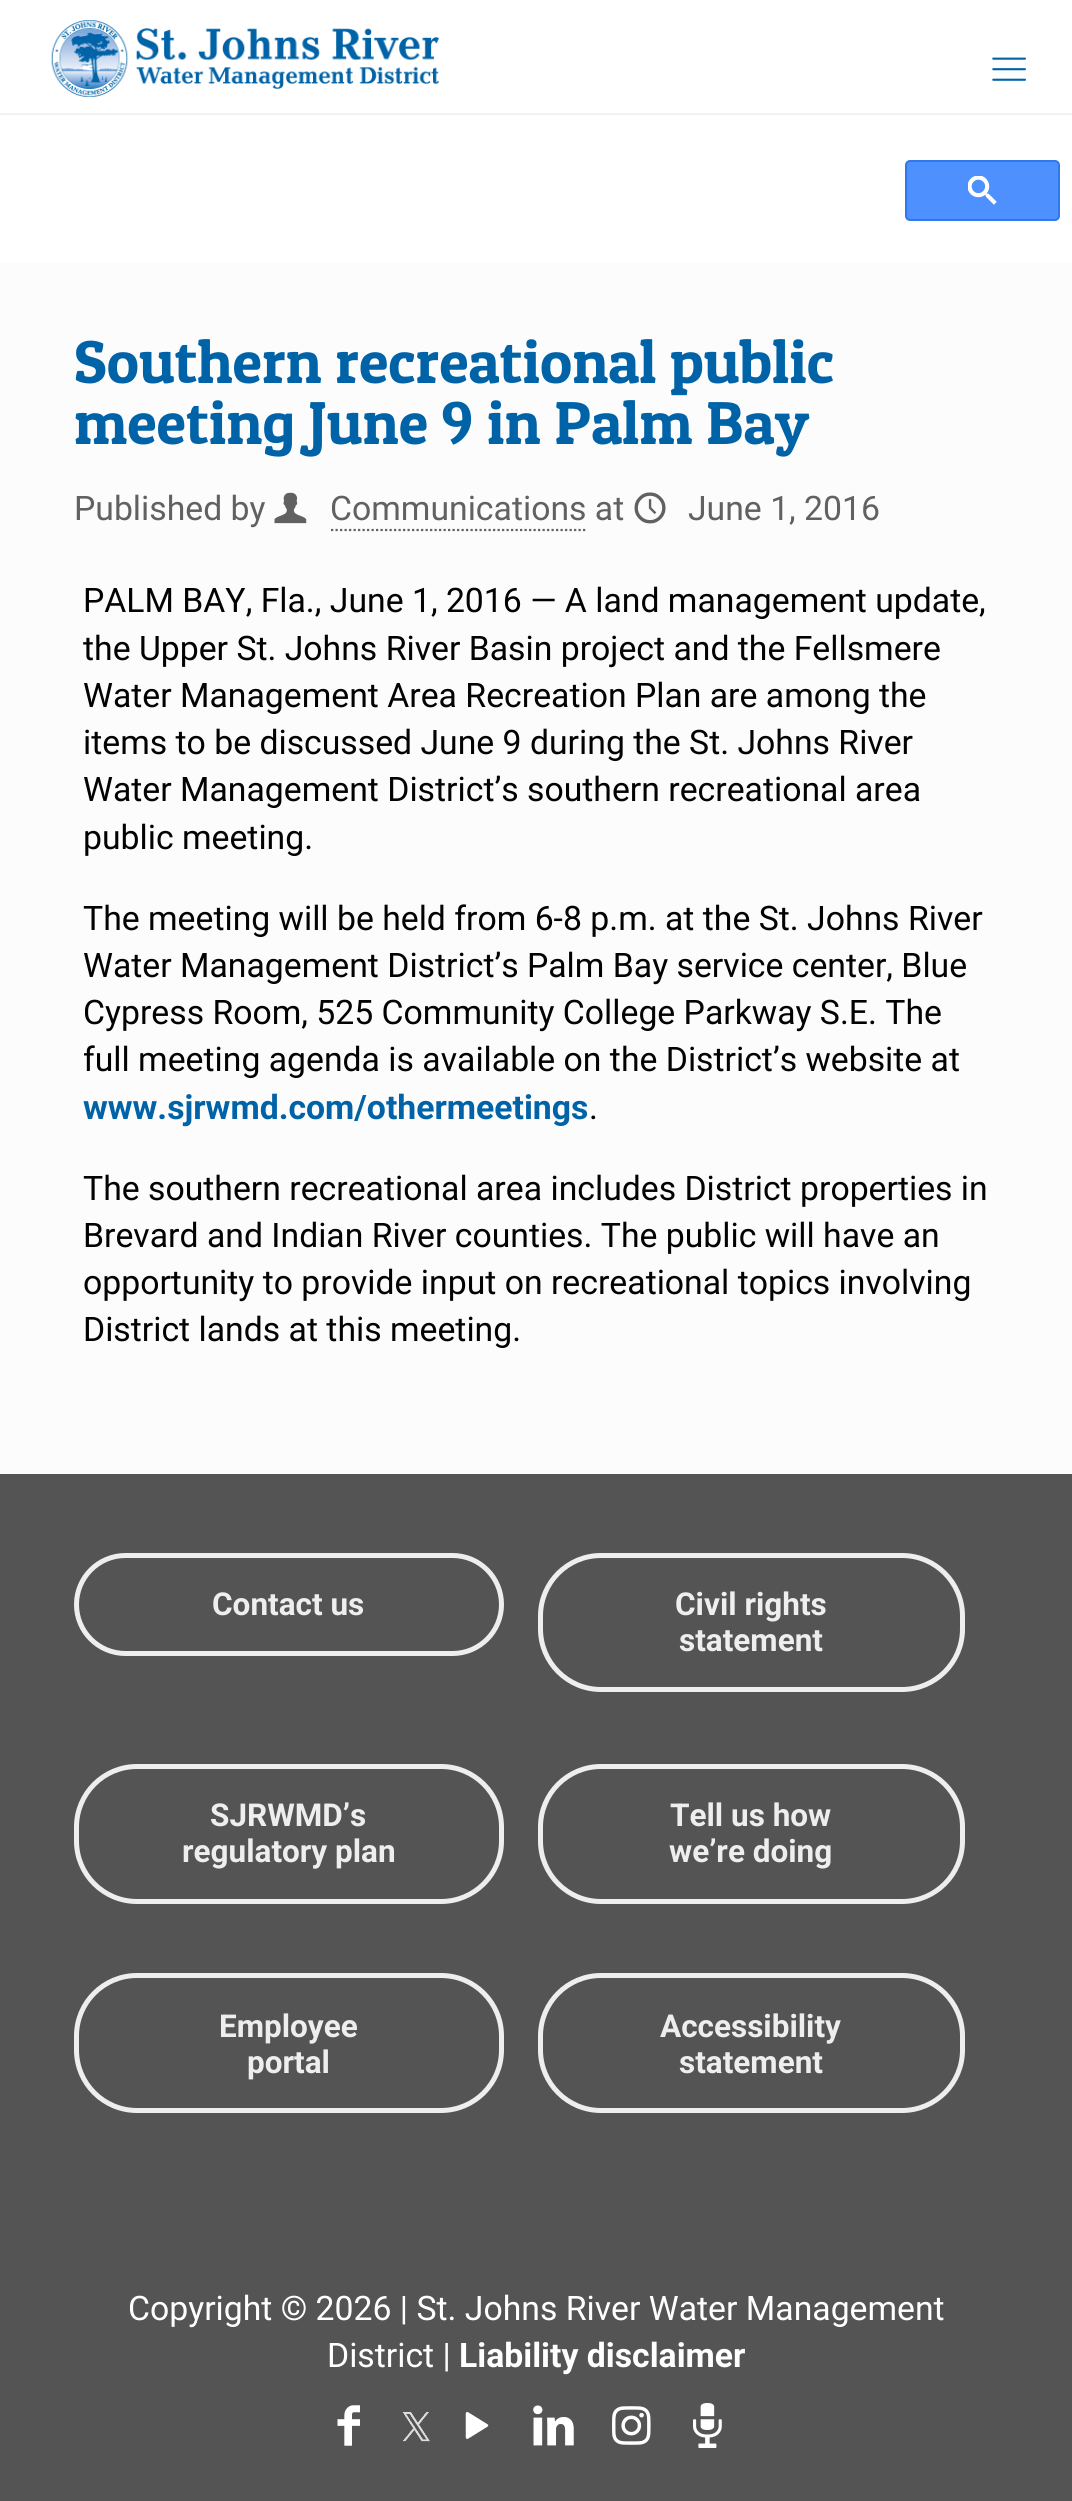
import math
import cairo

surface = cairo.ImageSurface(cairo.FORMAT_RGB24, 1072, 2501)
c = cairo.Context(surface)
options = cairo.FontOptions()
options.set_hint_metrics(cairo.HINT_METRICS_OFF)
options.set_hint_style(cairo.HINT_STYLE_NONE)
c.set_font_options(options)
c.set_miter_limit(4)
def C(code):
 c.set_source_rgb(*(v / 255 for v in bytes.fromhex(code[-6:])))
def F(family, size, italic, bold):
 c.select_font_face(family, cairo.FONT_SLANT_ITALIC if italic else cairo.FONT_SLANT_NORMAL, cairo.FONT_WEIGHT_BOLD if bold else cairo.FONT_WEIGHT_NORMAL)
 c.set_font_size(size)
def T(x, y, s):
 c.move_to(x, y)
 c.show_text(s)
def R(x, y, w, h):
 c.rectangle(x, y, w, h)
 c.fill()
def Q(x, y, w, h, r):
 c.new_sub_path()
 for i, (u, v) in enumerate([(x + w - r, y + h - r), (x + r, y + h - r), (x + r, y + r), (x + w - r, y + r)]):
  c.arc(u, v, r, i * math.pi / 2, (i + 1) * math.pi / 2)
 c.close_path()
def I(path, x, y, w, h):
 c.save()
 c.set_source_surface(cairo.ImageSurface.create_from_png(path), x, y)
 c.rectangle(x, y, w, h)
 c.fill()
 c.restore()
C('fcfcfc')
c.paint()
C('ffffff')
R(0,0,1072,263)
C('f2f2f2')
R(0,113,1072,2)
I('1.png',51,20,388,77)
I('2.png',992,57,34,24)
C('4d90fe')
Q(906,161,153,59,4)
c.fill_preserve()
C('3079ed')
c.stroke()
I('3.png',968,176,29,29)
F('Patua One',60.75,0,0)
C('0063a8')
T(74,383,'Southern recreational public')
T(74,444,'meeting June 9 in Palm Bay')
F('Roboto',33.75,0,0)
C('616161')
T(74,520,'Published by')
I('4.png',274,492,33,32)
T(330,520,'Communications at')
c.new_path()
c.move_to(331,530)
c.line_to(587,530)
c.set_line_width(2.2)
c.set_dash([2.25,2.25])
c.stroke()
I('5.png',634,492,32,32)
T(688,520,'June 1, 2016')
C('020202')
T(83,612,'PALM BAY, Fla., June 1, 2016 — A land management update,')
T(83,660,'the Upper St. Johns River Basin project and the Fellsmere')
T(83,707,'Water Management Area Recreation Plan are among the')
T(83,754,'items to be discussed June 9 during the St. Johns River')
T(83,801,'Water Management District’s southern recreational area')
T(83,849,'public meeting.')
T(83,930,'The meeting will be held from 6-8 p.m. at the St. Johns River')
T(83,977,'Water Management District’s Palm Bay service center, Blue')
T(83,1024,'Cypress Room, 525 Community College Parkway S.E. The')
T(83,1071,'full meeting agenda is available on the District’s website at')
F('Roboto',33.75,0,1)
C('0063a8')
T(83,1119,'www.sjrwmd.com/othermeetings')
F('Roboto',33.75,0,0)
C('020202')
T(589,1119,'.')
T(83,1200,'The southern recreational area includes District properties in')
T(83,1247,'Brevard and Indian River counties. The public will have an')
T(83,1294,'opportunity to provide input on recreational topics involving')
T(83,1341,'District lands at this meeting.')
C('545454')
R(0,1474,1072,1027)
Q(76.5,1555.5,425,98,49)
C('eeeeee')
c.set_line_width(5)
c.set_dash([])
c.stroke()
F('Roboto',31.5,0,1)
T(212,1615,'Contact us')
Q(540.5,1555.5,422,134,60.5)
c.stroke()
T(675,1615,'Civil rights')
T(679,1651,'statement')
Q(76.5,1766.5,425,135,60.5)
c.stroke()
T(210,1826,'SJRWMD’s')
T(182,1862,'regulatory plan')
Q(540.5,1766.5,422,135,60.5)
c.stroke()
T(670,1826,'Tell us how')
T(669,1862,'we’re doing')
Q(76.5,1975.5,425,135,60.5)
c.stroke()
T(219,2037,'Employee')
T(247,2073,'portal')
Q(540.5,1975.5,422,135,60.5)
c.stroke()
T(660,2037,'Accessibility')
T(679,2073,'statement')
F('Roboto',33.75,0,0)
C('ffffff')
T(128,2320,'Copyright © 2026 | St. Johns River Water Management')
T(327,2367,'District |')
F('Roboto',33.75,0,1)
T(459,2367,'Liability disclaimer')
I('6.png',337,2405,23,41)
I('7.png',402,2412,28,30)
I('8.png',465,2411,24,28)
I('9.png',533,2405,41,41)
I('10.png',612,2406,39,39)
I('11.png',693,2403,29,45)
surface.write_to_png('o.png')
